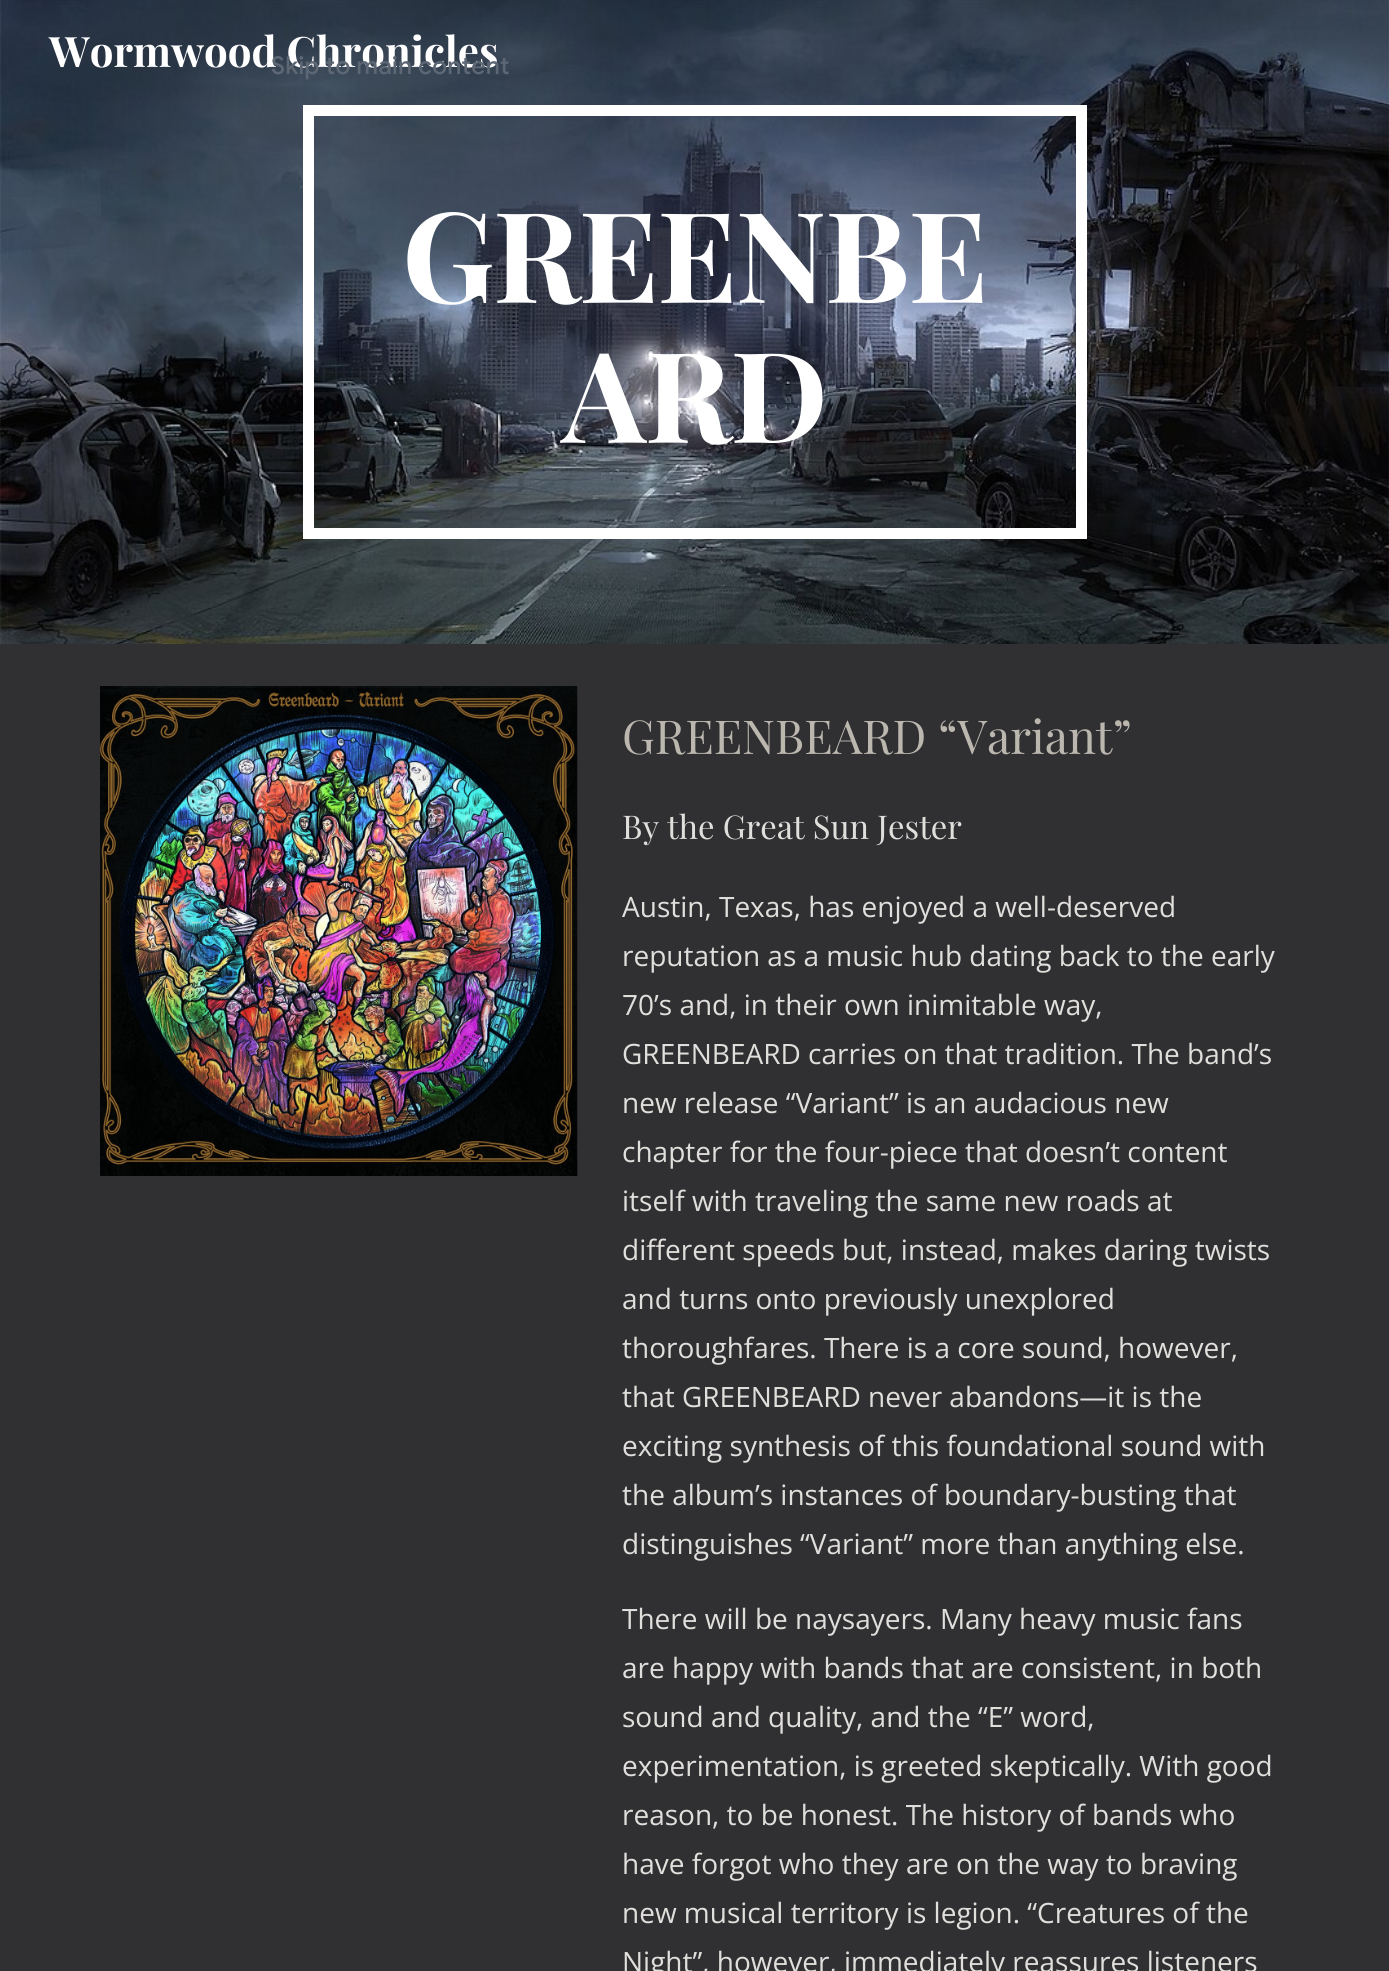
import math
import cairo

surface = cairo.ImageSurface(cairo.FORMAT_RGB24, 1389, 1971)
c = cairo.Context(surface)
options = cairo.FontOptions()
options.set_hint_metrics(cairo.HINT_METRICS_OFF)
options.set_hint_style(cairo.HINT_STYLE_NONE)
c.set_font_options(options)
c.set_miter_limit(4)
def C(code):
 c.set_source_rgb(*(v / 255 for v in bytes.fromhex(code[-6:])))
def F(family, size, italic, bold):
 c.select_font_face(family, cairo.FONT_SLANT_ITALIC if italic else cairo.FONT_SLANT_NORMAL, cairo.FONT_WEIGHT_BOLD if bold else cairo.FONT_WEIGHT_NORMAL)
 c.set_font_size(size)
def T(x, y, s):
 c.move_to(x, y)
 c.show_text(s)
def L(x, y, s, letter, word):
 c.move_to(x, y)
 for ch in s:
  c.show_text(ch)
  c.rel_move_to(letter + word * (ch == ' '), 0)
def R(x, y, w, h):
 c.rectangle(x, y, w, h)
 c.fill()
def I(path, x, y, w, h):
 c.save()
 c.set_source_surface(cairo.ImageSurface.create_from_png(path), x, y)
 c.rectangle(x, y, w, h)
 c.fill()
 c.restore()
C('ffffff')
c.paint()
I('1.png',0,0,1389,644)
F('Playfair Display',42,0,1)
C('ffffff')
T(49,67,'Wormwood Chronicles')
c.rectangle(308.5,110.5,773,423)
c.set_line_width(11)
c.stroke()
F('Playfair Display',126,0,1)
L(402,303,'GREENBE',-1.5,0)
L(562,443,'ARD',-1.5,0)
C('303033')
R(0,644,1389,1327)
I('2.png',100,686,478,490)
F('Playfair Display',46.75,0,0)
C('bbb7af')
T(622,754,'GREENBEARD “Variant”')
F('Playfair Display',32.75,0,0)
C('e1dfdb')
T(622,839,'By the Great Sun Jester')
F('Open Sans',28,0,0)
T(622,917,'Austin, Texas, has enjoyed a well-deserved')
T(622,966,'reputation as a music hub dating back to the early')
T(622,1015,'70’s and, in their own inimitable way,')
T(622,1064,'GREENBEARD carries on that tradition. The band’s')
T(622,1113,'new release “Variant” is an audacious new')
T(622,1162,'chapter for the four-piece that doesn’t content')
T(622,1211,'itself with traveling the same new roads at')
T(622,1260,'different speeds but, instead, makes daring twists')
T(622,1309,'and turns onto previously unexplored')
T(622,1358,'thoroughfares. There is a core sound, however,')
T(622,1407,'that GREENBEARD never abandons—it is the')
T(622,1456,'exciting synthesis of this foundational sound with')
T(622,1505,'the album’s instances of boundary-busting that')
T(622,1554,'distinguishes “Variant” more than anything else.')
T(622,1629,'There will be naysayers. Many heavy music fans')
T(622,1678,'are happy with bands that are consistent, in both')
T(622,1727,'sound and quality, and the “E” word,')
T(622,1776,'experimentation, is greeted skeptically. With good')
T(622,1825,'reason, to be honest. The history of bands who')
T(622,1874,'have forgot who they are on the way to braving')
T(622,1923,'new musical territory is legion. “Creatures of the')
T(622,1972,'Night”, however, immediately reassures listeners')
F('Google Sans Medium',24.5,0,0)
C('5d6774')
L(271,74,'Skip to main content',.25,0)
surface.write_to_png('o.png')
